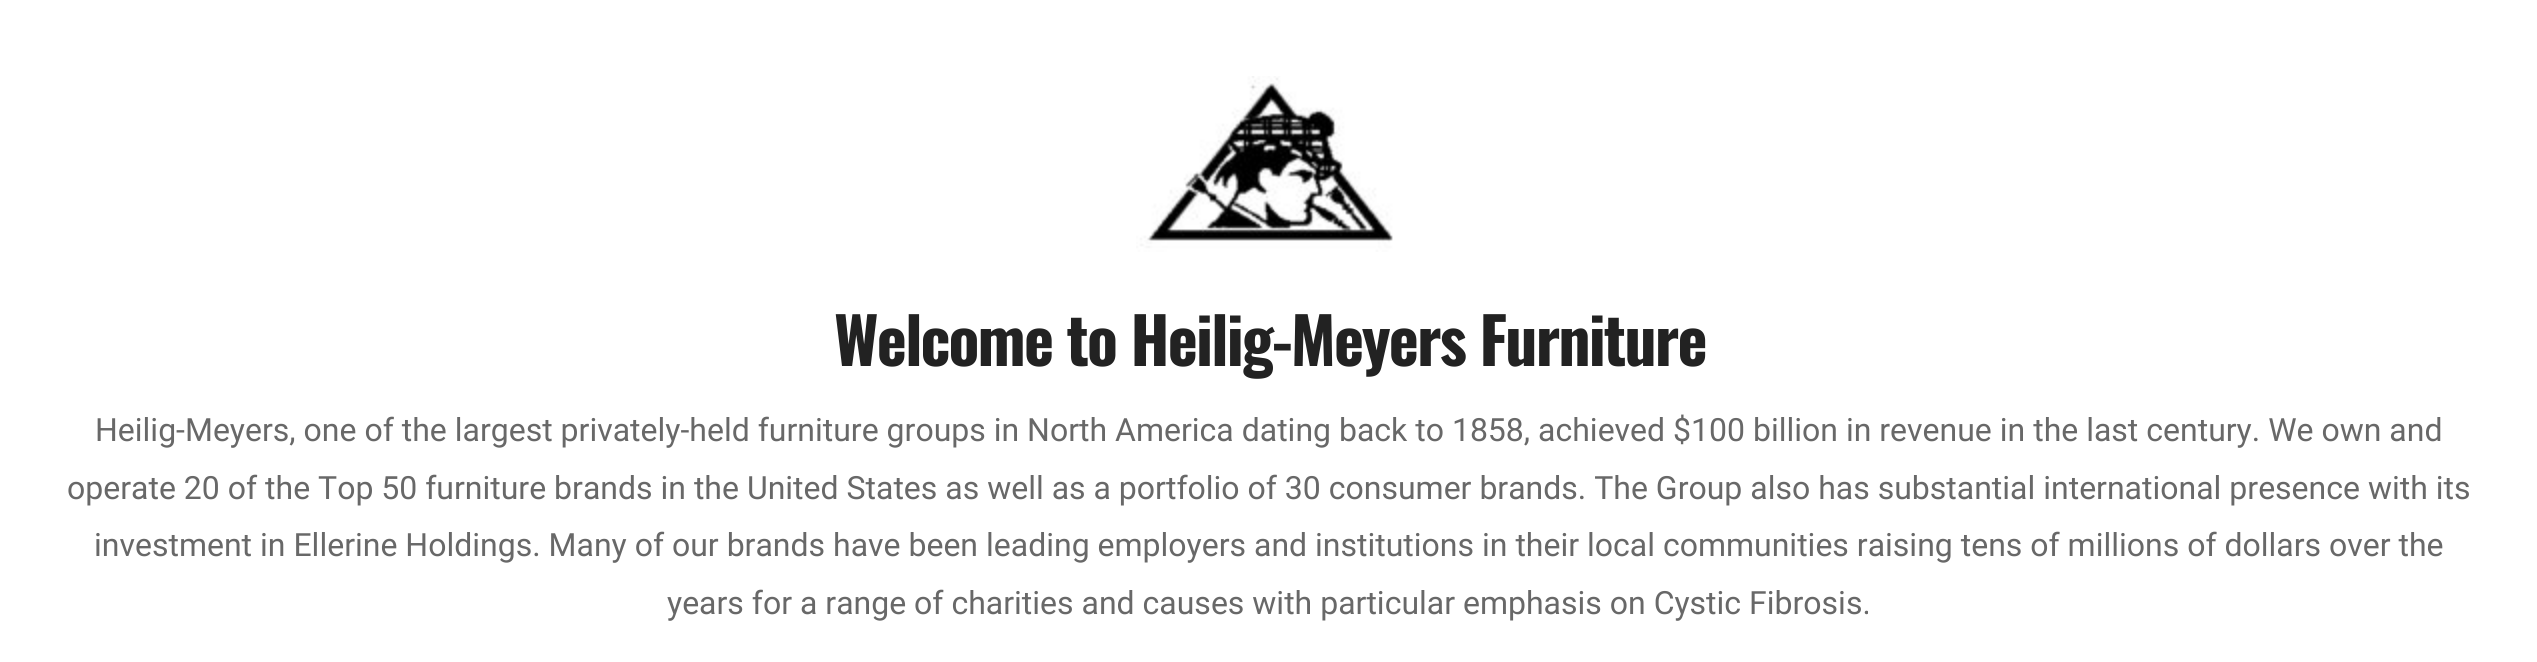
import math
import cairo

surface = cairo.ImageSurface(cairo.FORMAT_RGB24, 2537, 662)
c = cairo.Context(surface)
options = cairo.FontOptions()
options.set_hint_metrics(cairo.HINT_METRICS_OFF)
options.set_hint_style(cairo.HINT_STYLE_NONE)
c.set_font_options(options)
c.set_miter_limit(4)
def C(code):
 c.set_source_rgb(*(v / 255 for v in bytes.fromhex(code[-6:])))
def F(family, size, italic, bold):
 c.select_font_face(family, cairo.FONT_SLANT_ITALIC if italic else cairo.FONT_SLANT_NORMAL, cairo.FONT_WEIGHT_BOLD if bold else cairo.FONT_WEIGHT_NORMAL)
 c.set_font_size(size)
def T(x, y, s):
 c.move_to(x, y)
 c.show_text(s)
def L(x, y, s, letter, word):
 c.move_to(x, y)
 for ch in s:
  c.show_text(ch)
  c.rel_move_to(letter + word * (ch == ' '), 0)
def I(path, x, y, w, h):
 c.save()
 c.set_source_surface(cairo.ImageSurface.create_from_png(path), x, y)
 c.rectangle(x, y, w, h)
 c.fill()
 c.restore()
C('ffffff')
c.paint()
I('1.png',1136,76,257,176)
F('Oswald',64,0,1)
C('222222')
L(834,366,'Welcome to Heilig-Meyers Furniture',-1.9,0)
F('Roboto',32,0,0)
C('686868')
T(95,441,'Heilig-Meyers, one of the largest privately-held furniture groups in North America dating back to 1858, achieved $100 billion in revenue in the last century. We own and')
T(67,499,'operate 20 of the Top 50 furniture brands in the United States as well as a portfolio of 30 consumer brands. The Group also has substantial international presence with its')
T(94,556,'investment in Ellerine Holdings. Many of our brands have been leading employers and institutions in their local communities raising tens of millions of dollars over the')
T(667,614,'years for a range of charities and causes with particular emphasis on Cystic Fibrosis.')
surface.write_to_png('o.png')
